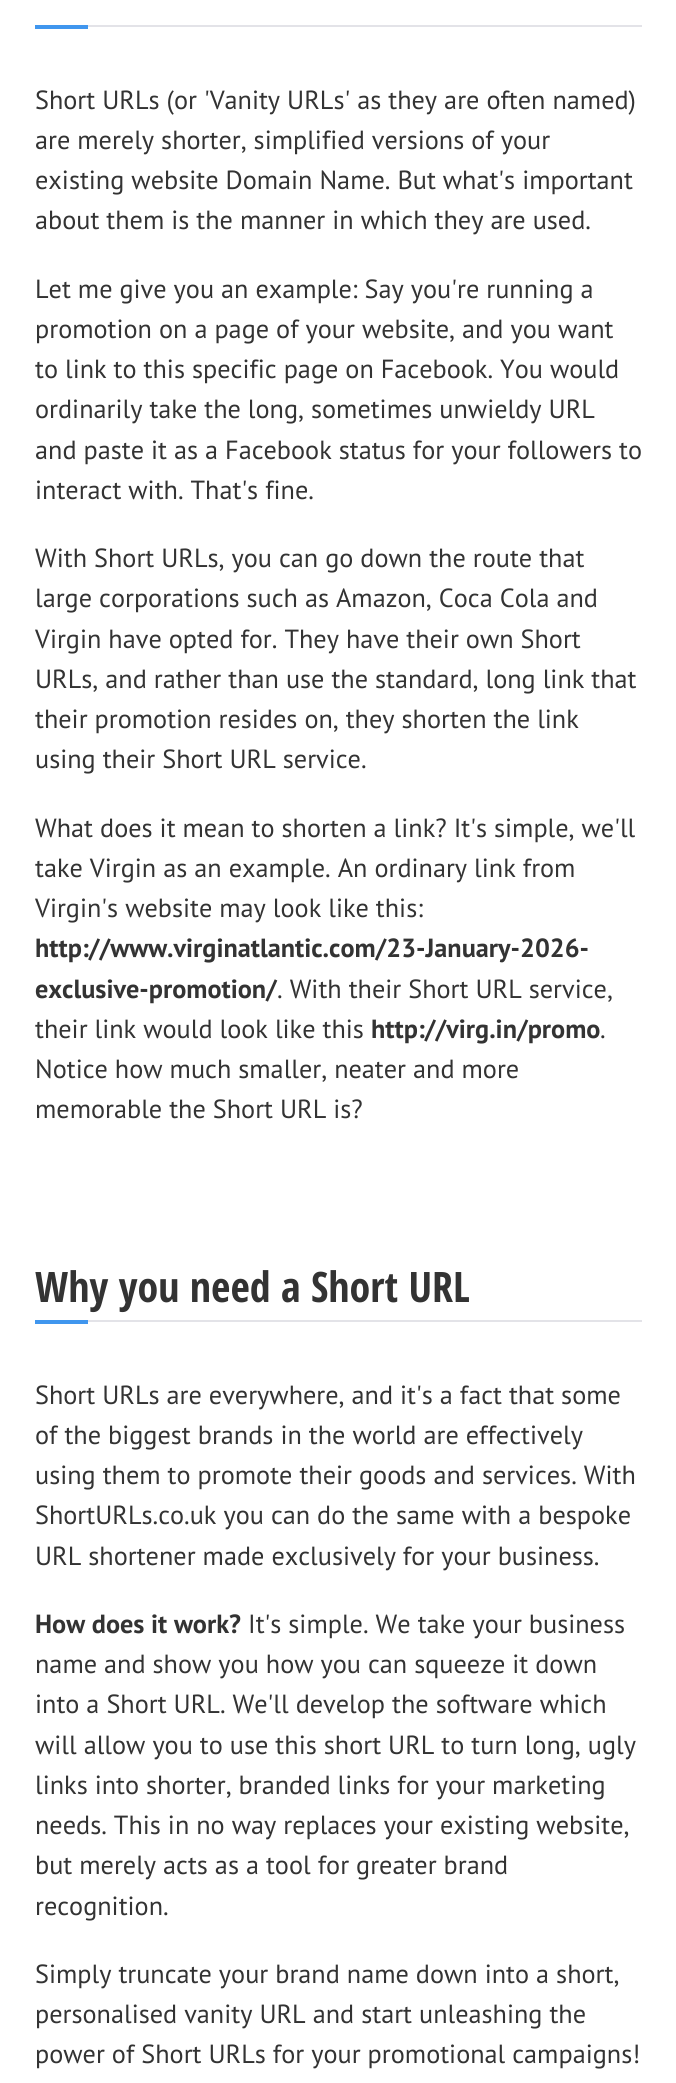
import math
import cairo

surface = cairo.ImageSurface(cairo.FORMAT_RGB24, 676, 2083)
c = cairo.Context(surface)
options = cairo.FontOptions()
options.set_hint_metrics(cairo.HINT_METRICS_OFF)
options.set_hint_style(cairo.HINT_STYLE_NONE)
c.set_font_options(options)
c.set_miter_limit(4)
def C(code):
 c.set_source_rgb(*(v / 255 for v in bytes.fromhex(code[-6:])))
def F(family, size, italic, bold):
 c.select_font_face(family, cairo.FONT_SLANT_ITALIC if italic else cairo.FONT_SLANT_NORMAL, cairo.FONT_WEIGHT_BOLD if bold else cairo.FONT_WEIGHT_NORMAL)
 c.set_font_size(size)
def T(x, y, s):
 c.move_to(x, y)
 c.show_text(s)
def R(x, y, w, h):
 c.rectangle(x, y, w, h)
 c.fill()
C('ffffff')
c.paint()
C('e3e3e8')
R(88,25,554,2)
C('4096ee')
R(35,25,53,4)
F('PT Sans',26.25,0,0)
C('333333')
T(35,109,'Short URLs (or \'Vanity URLs\' as they are often named)')
T(35,149,'are merely shorter, simplified versions of your')
T(35,189,'existing website Domain Name. But what\'s important')
T(35,229,'about them is the manner in which they are used.')
T(35,298,'Let me give you an example: Say you\'re running a')
T(35,338,'promotion on a page of your website, and you want')
T(35,378,'to link to this specific page on Facebook. You would')
T(35,418,'ordinarily take the long, sometimes unwieldy URL')
T(35,459,'and paste it as a Facebook status for your followers to')
T(35,499,'interact with. That\'s fine.')
T(35,567,'With Short URLs, you can go down the route that')
T(35,607,'large corporations such as Amazon, Coca Cola and')
T(35,648,'Virgin have opted for. They have their own Short')
T(35,688,'URLs, and rather than use the standard, long link that')
T(35,728,'their promotion resides on, they shorten the link')
T(35,768,'using their Short URL service.')
T(35,837,'What does it mean to shorten a link? It\'s simple, we\'ll')
T(35,877,'take Virgin as an example. An ordinary link from')
T(35,917,'Virgin\'s website may look like this:')
F('PT Sans',26.25,0,1)
T(35,957,'http://www.virginatlantic.com/23-January-2026-')
T(35,998,'exclusive-promotion/')
F('PT Sans',26.25,0,0)
T(277,998,'. With their Short URL service,')
T(35,1038,'their link would look like this')
F('PT Sans',26.25,0,1)
T(371,1038,'http://virg.in/promo')
F('PT Sans',26.25,0,0)
T(600,1038,'.')
T(35,1078,'Notice how much smaller, neater and more')
T(35,1118,'memorable the Short URL is?')
C('e3e3e8')
R(88,1320,554,2)
F('Open Sans Condensed',42,0,1)
C('333333')
T(35,1302,'Why you need a Short URL')
C('4096ee')
R(35,1320,53,4)
F('PT Sans',26.25,0,0)
C('333333')
T(35,1404,'Short URLs are everywhere, and it\'s a fact that some')
T(35,1444,'of the biggest brands in the world are effectively')
T(35,1484,'using them to promote their goods and services. With')
T(35,1524,'ShortURLs.co.uk you can do the same with a bespoke')
T(35,1565,'URL shortener made exclusively for your business.')
F('PT Sans',26.25,0,1)
T(35,1633,'How does it work?')
F('PT Sans',26.25,0,0)
T(248,1633,'It\'s simple. We take your business')
T(35,1673,'name and show you how you can squeeze it down')
T(35,1713,'into a Short URL. We\'ll develop the software which')
T(35,1754,'will allow you to use this short URL to turn long, ugly')
T(35,1794,'links into shorter, branded links for your marketing')
T(35,1834,'needs. This in no way replaces your existing website,')
T(35,1874,'but merely acts as a tool for greater brand')
T(35,1915,'recognition.')
T(35,1983,'Simply truncate your brand name down into a short,')
T(35,2023,'personalised vanity URL and start unleashing the')
T(35,2063,'power of Short URLs for your promotional campaigns!')
surface.write_to_png('o.png')
